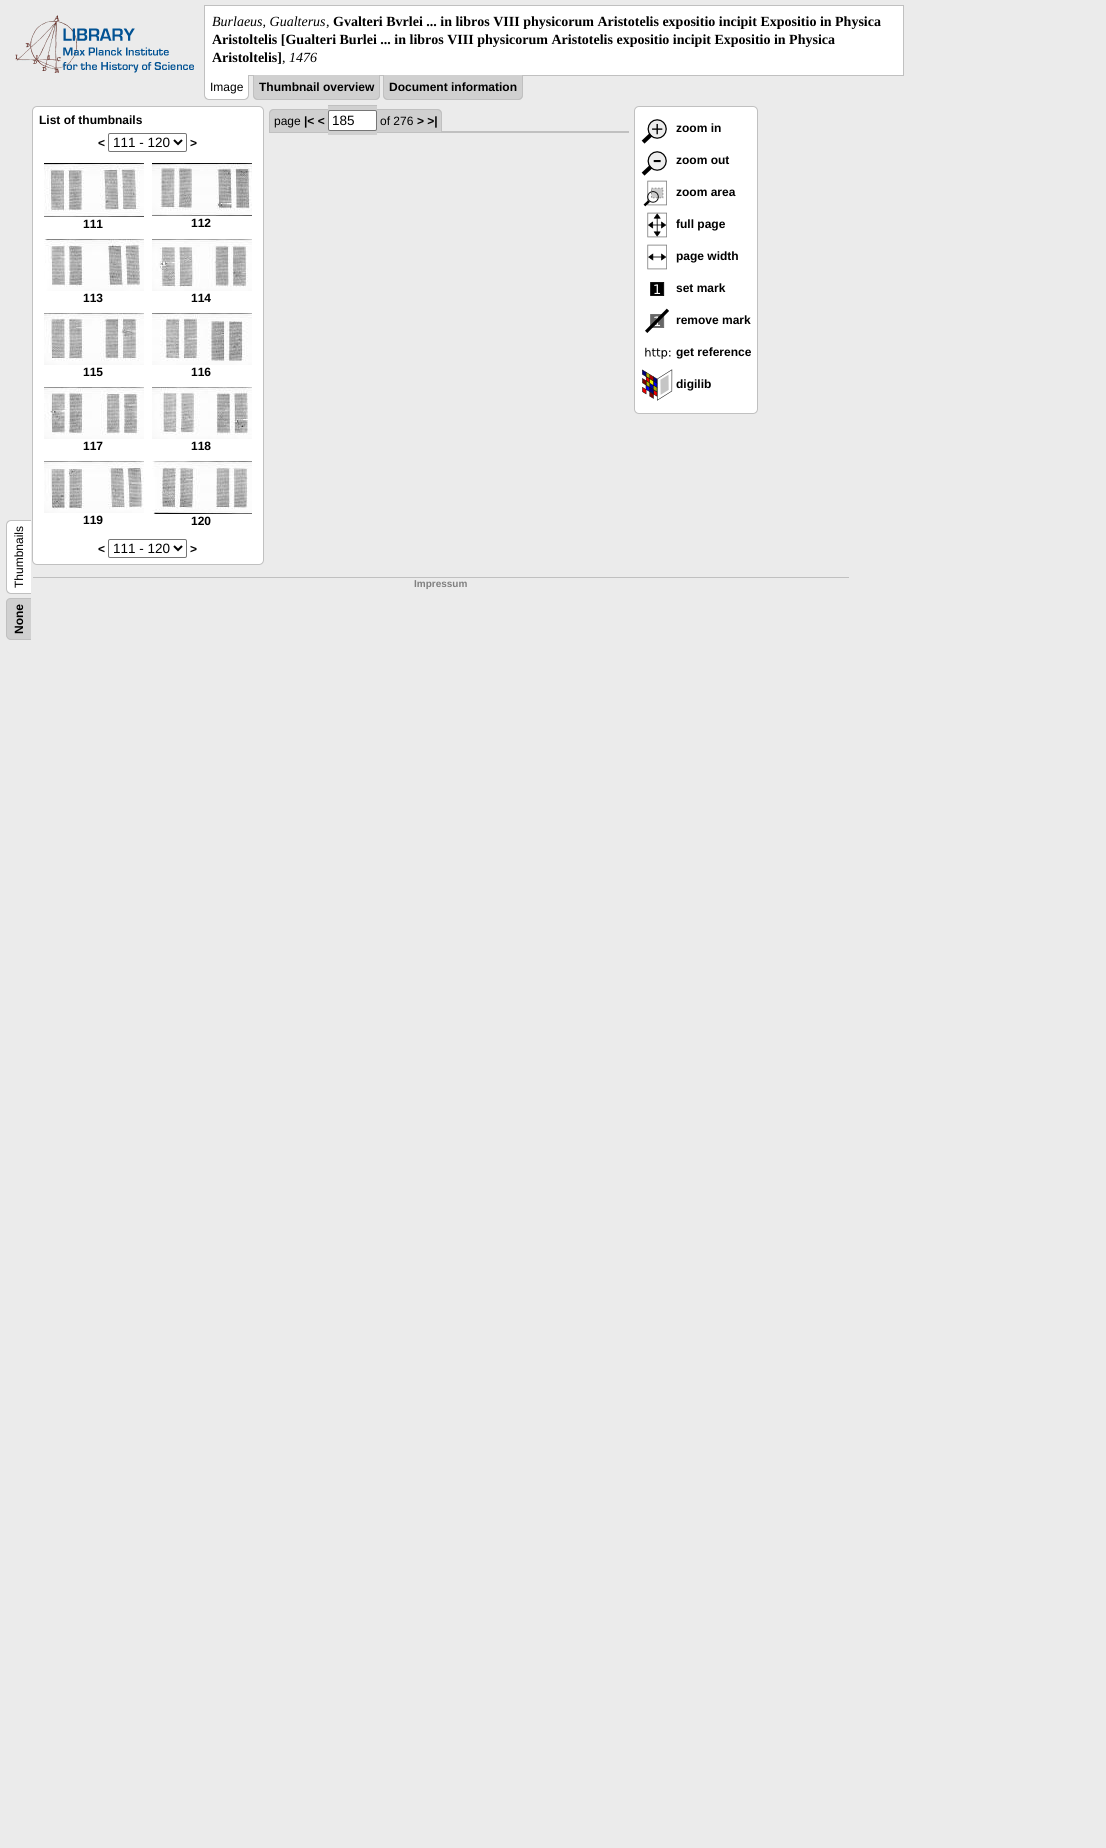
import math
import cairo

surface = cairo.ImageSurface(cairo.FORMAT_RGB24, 1106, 1848)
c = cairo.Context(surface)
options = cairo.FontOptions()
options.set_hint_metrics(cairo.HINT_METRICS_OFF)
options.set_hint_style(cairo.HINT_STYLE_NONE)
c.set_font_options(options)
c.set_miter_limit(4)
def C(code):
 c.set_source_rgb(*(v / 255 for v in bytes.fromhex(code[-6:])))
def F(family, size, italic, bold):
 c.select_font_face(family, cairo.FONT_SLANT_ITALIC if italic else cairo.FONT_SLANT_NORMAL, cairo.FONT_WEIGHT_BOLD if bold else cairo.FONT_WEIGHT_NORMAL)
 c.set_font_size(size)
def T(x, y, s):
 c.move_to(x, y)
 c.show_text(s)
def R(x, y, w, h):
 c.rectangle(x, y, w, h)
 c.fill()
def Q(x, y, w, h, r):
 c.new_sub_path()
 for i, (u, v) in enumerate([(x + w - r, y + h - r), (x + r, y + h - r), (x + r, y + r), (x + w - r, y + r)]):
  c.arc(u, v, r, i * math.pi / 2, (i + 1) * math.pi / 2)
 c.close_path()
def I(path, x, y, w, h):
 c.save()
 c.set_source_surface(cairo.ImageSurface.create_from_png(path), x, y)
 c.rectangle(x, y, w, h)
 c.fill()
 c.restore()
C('ebebeb')
c.paint()
I('1.png',15,15,179,58)
C('ffffff')
c.rectangle(204.5,5.5,699,70)
c.fill_preserve()
C('c0c0c0')
c.set_line_width(1)
c.stroke()
F('Liberation Serif',14,1,0)
C('000000')
T(212,26,'Burlaeus, Gualterus')
F('Liberation Serif',14,0,0)
T(326,26,',')
F('Liberation Serif',14,0,1)
T(333,26,'Gvalteri Bvrlei ... in libros VIII physicorum Aristotelis expositio incipit Expositio in Physica')
T(212,44,'Aristoltelis [Gualteri Burlei ... in libros VIII physicorum Aristotelis expositio incipit Expositio in Physica')
T(212,62,'Aristoltelis]')
F('Liberation Serif',14,0,0)
T(282,62,',')
F('Liberation Serif',14,1,0)
T(289,62,'1476')
C('ffffff')
c.new_path()
c.move_to(204,75)
c.line_to(249,75)
c.line_to(249,95)
c.curve_to(249,98,247,100,244,100)
c.line_to(209,100)
c.curve_to(206,100,204,98,204,95)
c.close_path()
c.fill()
C('c0c0c0')
c.set_fill_rule(cairo.FILL_RULE_EVEN_ODD)
c.new_path()
c.move_to(204,75)
c.line_to(249,75)
c.line_to(249,95)
c.curve_to(249,98,247,100,244,100)
c.line_to(209,100)
c.curve_to(206,100,204,98,204,95)
c.close_path()
c.move_to(205,75)
c.line_to(248,75)
c.line_to(248,95)
c.curve_to(248,97,246,99,244,99)
c.line_to(209,99)
c.curve_to(207,99,205,97,205,95)
c.close_path()
c.fill()
F('Liberation Sans',12,0,0)
C('000000')
T(210,91,'Image')
C('d0d0d0')
c.new_path()
c.move_to(253,75)
c.line_to(380,75)
c.line_to(380,95)
c.curve_to(380,98,378,100,375,100)
c.line_to(258,100)
c.curve_to(255,100,253,98,253,95)
c.close_path()
c.fill()
C('c0c0c0')
c.new_path()
c.move_to(253,75)
c.line_to(380,75)
c.line_to(380,95)
c.curve_to(380,98,378,100,375,100)
c.line_to(258,100)
c.curve_to(255,100,253,98,253,95)
c.close_path()
c.move_to(254,75)
c.line_to(379,75)
c.line_to(379,95)
c.curve_to(379,97,377,99,375,99)
c.line_to(258,99)
c.curve_to(256,99,254,97,254,95)
c.close_path()
c.fill()
F('Liberation Sans',12,0,1)
C('000000')
T(259,91,'Thumbnail overview')
C('d0d0d0')
c.new_path()
c.move_to(383,75)
c.line_to(523,75)
c.line_to(523,95)
c.curve_to(523,98,521,100,518,100)
c.line_to(388,100)
c.curve_to(385,100,383,98,383,95)
c.close_path()
c.fill()
C('c0c0c0')
c.new_path()
c.move_to(383,75)
c.line_to(523,75)
c.line_to(523,95)
c.curve_to(523,98,521,100,518,100)
c.line_to(388,100)
c.curve_to(385,100,383,98,383,95)
c.close_path()
c.move_to(384,75)
c.line_to(522,75)
c.line_to(522,95)
c.curve_to(522,97,520,99,518,99)
c.line_to(388,99)
c.curve_to(386,99,384,97,384,95)
c.close_path()
c.fill()
C('000000')
T(389,91,'Document information')
C('ffffff')
Q(32.5,106.5,231,458,4.5)
c.fill_preserve()
C('c0c0c0')
c.stroke()
C('000000')
T(39,124,'List of thumbnails')
T(98,147,'<')
Q(108.5,133.5,78,18,1.5)
C('767676')
c.stroke()
c.new_path()
c.move_to(174,140)
c.line_to(178,144)
c.line_to(182,140)
C('000000')
c.set_line_width(2)
c.stroke()
F('Liberation Sans',13.5,0,0)
T(113,147,'111 - 120')
F('Liberation Sans',12,0,1)
T(190,147,'>')
I('2.png',44,163,100,54)
T(83,228,'111')
I('3.png',152,163,100,53)
T(191,227,'112')
I('4.png',44,239,100,52)
T(83,302,'113')
I('5.png',152,239,100,52)
T(191,302,'114')
I('6.png',44,313,100,52)
T(83,376,'115')
I('7.png',152,313,100,52)
T(191,376,'116')
I('8.png',44,387,100,52)
T(83,450,'117')
I('9.png',152,387,100,52)
T(191,450,'118')
I('10.png',44,461,100,52)
T(83,524,'119')
I('11.png',152,461,100,53)
T(191,525,'120')
T(98,553,'<')
Q(108.5,539.5,78,18,1.5)
C('767676')
c.set_line_width(1)
c.stroke()
c.new_path()
c.move_to(174,546)
c.line_to(178,550)
c.line_to(182,546)
C('000000')
c.set_line_width(2)
c.stroke()
F('Liberation Sans',13.5,0,0)
T(113,553,'111 - 120')
F('Liberation Sans',12,0,1)
T(190,553,'>')
C('ffffff')
c.set_fill_rule(cairo.FILL_RULE_WINDING)
c.new_path()
c.move_to(6,589)
c.line_to(6,525)
c.curve_to(6,522,8,520,11,520)
c.line_to(31,520)
c.line_to(31,594)
c.line_to(11,594)
c.curve_to(8,594,6,592,6,589)
c.close_path()
c.fill()
C('c0c0c0')
c.set_fill_rule(cairo.FILL_RULE_EVEN_ODD)
c.new_path()
c.move_to(6,589)
c.line_to(6,525)
c.curve_to(6,522,8,520,11,520)
c.line_to(31,520)
c.line_to(31,594)
c.line_to(11,594)
c.curve_to(8,594,6,592,6,589)
c.close_path()
c.move_to(7,589)
c.line_to(7,525)
c.curve_to(7,523,9,521,11,521)
c.line_to(31,521)
c.line_to(31,593)
c.line_to(11,593)
c.curve_to(9,593,7,591,7,589)
c.close_path()
c.fill()
F('Liberation Sans',12,0,0)
C('000000')
c.save()
c.translate(23,588)
c.rotate(-90 * math.pi / 180)
T(0,0,'Thumbnails')
c.restore()
C('d0d0d0')
c.set_fill_rule(cairo.FILL_RULE_WINDING)
c.new_path()
c.move_to(6,635)
c.line_to(6,603)
c.curve_to(6,600,8,598,11,598)
c.line_to(31,598)
c.line_to(31,640)
c.line_to(11,640)
c.curve_to(8,640,6,637,6,635)
c.close_path()
c.fill()
C('c0c0c0')
c.set_fill_rule(cairo.FILL_RULE_EVEN_ODD)
c.new_path()
c.move_to(6,635)
c.line_to(6,603)
c.curve_to(6,600,8,598,11,598)
c.line_to(31,598)
c.line_to(31,640)
c.line_to(11,640)
c.curve_to(8,640,6,637,6,635)
c.close_path()
c.move_to(7,635)
c.line_to(7,603)
c.curve_to(7,600,9,599,11,599)
c.line_to(31,599)
c.line_to(31,639)
c.line_to(11,639)
c.curve_to(9,639,7,637,7,635)
c.close_path()
c.fill()
F('Liberation Sans',12,0,1)
C('000000')
c.save()
c.translate(23,634)
c.rotate(-90 * math.pi / 180)
T(0,0,'None')
c.restore()
C('c0c0c0')
R(269,131,360,2)
C('d0d0d0')
c.new_path()
c.move_to(274,109)
c.line_to(304,109)
c.line_to(304,132)
c.line_to(269,132)
c.line_to(269,114)
c.curve_to(269,111,271,109,274,109)
c.close_path()
c.fill()
C('c0c0c0')
c.new_path()
c.move_to(274,109)
c.line_to(304,109)
c.line_to(304,132)
c.line_to(269,132)
c.line_to(269,114)
c.curve_to(269,111,271,109,274,109)
c.close_path()
c.move_to(274,110)
c.line_to(304,110)
c.line_to(304,132)
c.line_to(270,132)
c.line_to(270,114)
c.curve_to(270,112,272,110,274,110)
c.close_path()
c.fill()
C('d0d0d0')
R(304,110,10,22)
C('c0c0c0')
R(304,109,10,1)
C('d0d0d0')
R(314,109,14,23)
C('c0c0c0')
R(314,109,14,1)
C('d0d0d0')
R(328,106,49,29)
C('c0c0c0')
R(328,105,49,1)
C('d0d0d0')
R(377,109,3,23)
C('c0c0c0')
R(377,109,40,1)
C('d0d0d0')
R(380,110,37,22)
R(417,109,10,23)
C('c0c0c0')
R(417,109,10,1)
C('d0d0d0')
c.new_path()
c.move_to(427,109)
c.line_to(437,109)
c.curve_to(440,109,442,111,442,114)
c.line_to(442,132)
c.line_to(427,132)
c.close_path()
c.fill()
C('c0c0c0')
c.new_path()
c.move_to(427,109)
c.line_to(437,109)
c.curve_to(440,109,442,111,442,114)
c.line_to(442,132)
c.line_to(427,132)
c.close_path()
c.move_to(427,110)
c.line_to(437,110)
c.curve_to(439,110,441,112,441,114)
c.line_to(441,132)
c.line_to(427,132)
c.close_path()
c.fill()
F('Liberation Sans',12,0,0)
C('000000')
T(274,125,'page')
F('Liberation Sans',12,0,1)
T(304,125,'|< <')
C('ffffff')
Q(328.5,110.5,48,20,1.5)
c.fill_preserve()
C('767676')
c.set_line_width(1)
c.stroke()
F('Liberation Sans',13.5,0,0)
C('000000')
T(332,125,'185')
F('Liberation Sans',12,0,0)
T(380,125,'of 276')
F('Liberation Sans',12,0,1)
T(417,125,'> >|')
C('ffffff')
Q(634.5,106.5,123,307,4.5)
c.fill_preserve()
C('c0c0c0')
c.stroke()
I('12.png',641,119,26,25)
C('000000')
T(676,132,'zoom in')
I('13.png',641,151,26,25)
T(676,164,'zoom out')
I('14.png',643,180,24,27)
T(676,196,'zoom area')
I('15.png',647,212,20,26)
T(676,228,'full page')
I('16.png',647,244,20,26)
T(676,260,'page width')
I('17.png',650,282,15,14)
T(676,292,'set mark')
I('18.png',645,308,24,25)
T(676,324,'remove mark')
I('19.png',645,347,26,12)
T(676,356,'get reference')
I('20.png',642,369,31,32)
T(676,388,'digilib')
C('c0c0c0')
R(33,577,816,1)
F('Liberation Sans',10,0,1)
C('808080')
T(414,587,'Impressum')
surface.write_to_png('o.png')
